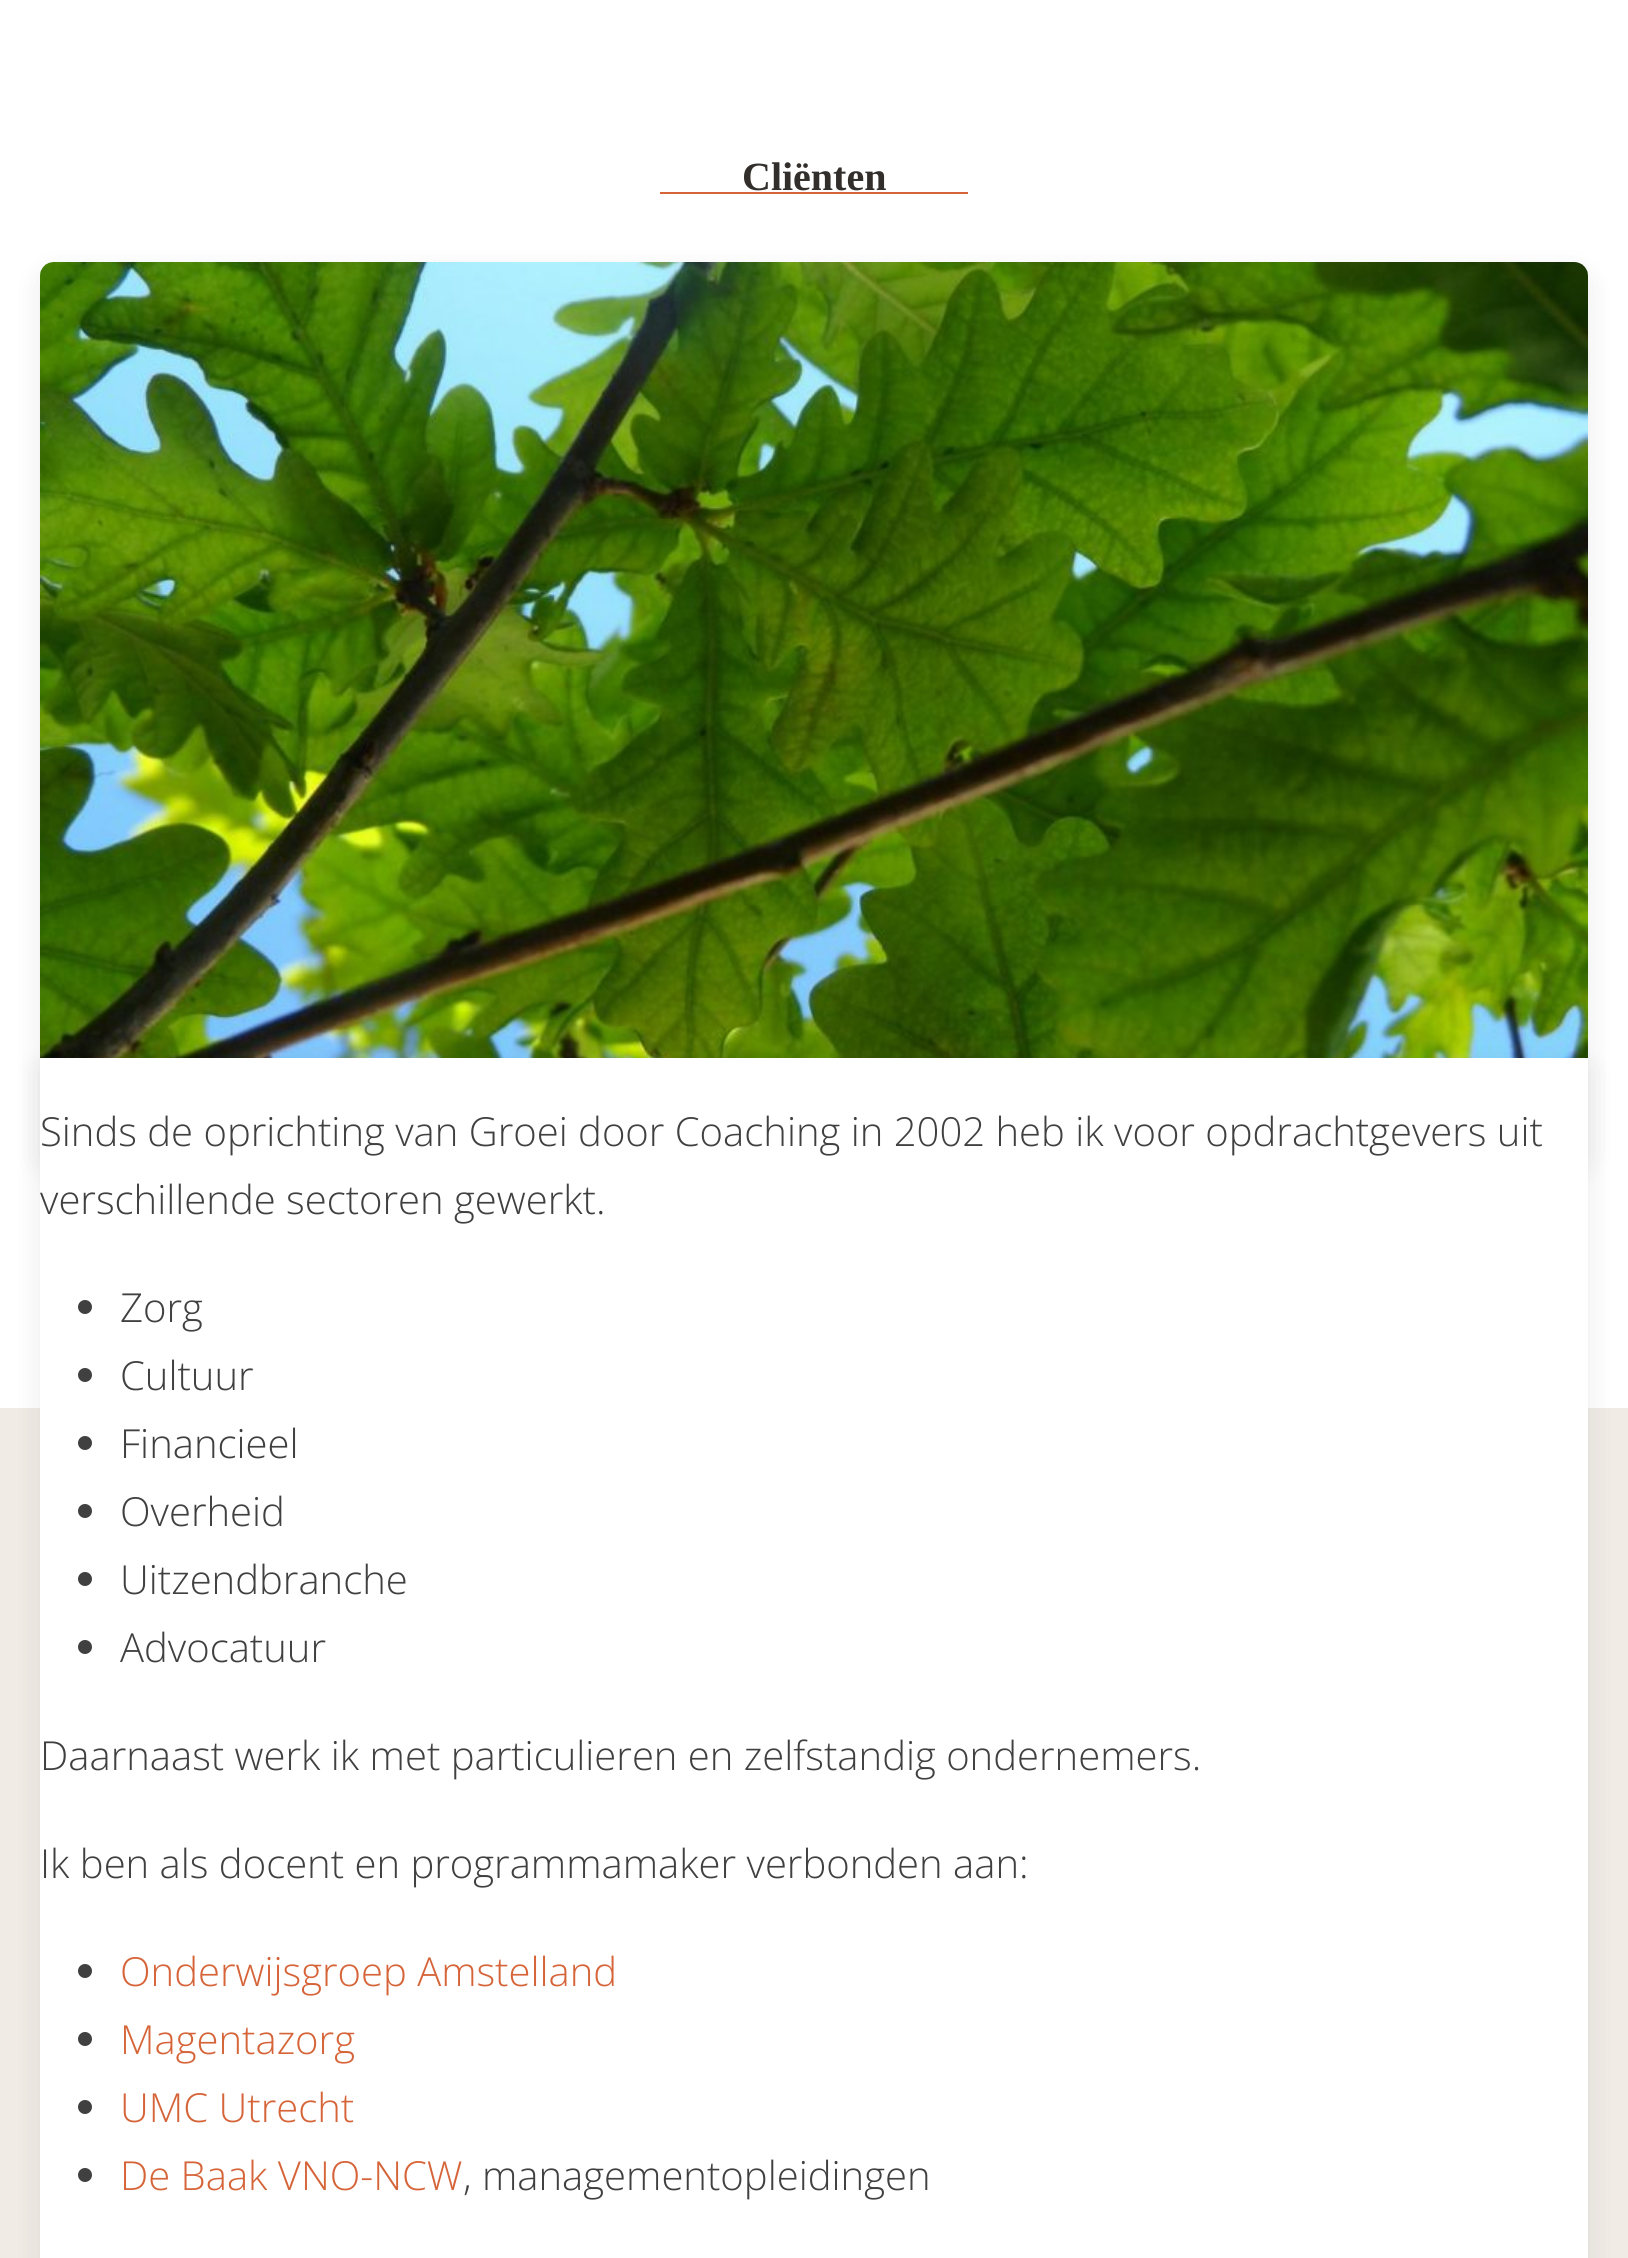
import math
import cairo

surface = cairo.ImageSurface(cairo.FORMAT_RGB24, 1628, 2258)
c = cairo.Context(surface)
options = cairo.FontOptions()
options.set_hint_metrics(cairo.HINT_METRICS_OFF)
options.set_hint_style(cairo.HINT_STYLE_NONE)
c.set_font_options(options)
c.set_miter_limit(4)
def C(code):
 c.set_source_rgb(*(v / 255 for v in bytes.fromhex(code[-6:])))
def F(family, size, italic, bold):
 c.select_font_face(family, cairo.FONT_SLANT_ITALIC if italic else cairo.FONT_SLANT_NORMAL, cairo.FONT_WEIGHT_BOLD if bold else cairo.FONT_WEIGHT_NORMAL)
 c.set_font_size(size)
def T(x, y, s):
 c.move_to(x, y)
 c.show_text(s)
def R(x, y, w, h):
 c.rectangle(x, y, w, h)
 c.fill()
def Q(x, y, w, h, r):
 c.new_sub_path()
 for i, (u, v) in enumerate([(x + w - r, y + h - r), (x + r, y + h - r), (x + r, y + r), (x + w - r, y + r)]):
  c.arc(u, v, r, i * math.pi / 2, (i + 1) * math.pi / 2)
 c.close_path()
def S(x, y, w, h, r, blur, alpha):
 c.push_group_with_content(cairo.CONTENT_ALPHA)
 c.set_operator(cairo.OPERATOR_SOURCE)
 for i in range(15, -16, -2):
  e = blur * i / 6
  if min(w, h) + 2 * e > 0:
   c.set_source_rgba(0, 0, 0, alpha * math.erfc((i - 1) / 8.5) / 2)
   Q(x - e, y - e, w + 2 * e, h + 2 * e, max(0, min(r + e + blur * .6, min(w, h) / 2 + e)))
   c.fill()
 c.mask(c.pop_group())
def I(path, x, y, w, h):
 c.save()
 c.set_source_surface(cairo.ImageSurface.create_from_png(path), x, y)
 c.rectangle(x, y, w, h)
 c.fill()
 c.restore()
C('ffffff')
c.paint()
F('Liberation Serif',40,0,1)
C('312e2b')
T(742,190,'Cliënten')
C('d66439')
R(660,192,308,2)
C('000000')
S(40,272,1548,900,14,15,.08)
I('1.png',40,262,1548,796)
C('f0ebe5')
R(0,1408,1628,850)
C('000000')
S(40,1068,1548,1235,0,15,.08)
C('ffffff')
R(40,1058,1548,1200)
F('Open Sans Light',40,0,0)
C('404040')
T(40,1146,'Sinds de oprichting van Groei door Coaching in 2002 heb ik voor opdrachtgevers uit')
T(40,1214,'verschillende sectoren gewerkt.')
c.new_path()
c.arc(85,1307,7,0,2 * math.pi)
c.fill()
T(120,1322,'Zorg')
c.new_path()
c.arc(85,1375,7,0,2 * math.pi)
c.fill()
T(120,1390,'Cultuur')
c.new_path()
c.arc(85,1443,7,0,2 * math.pi)
c.fill()
T(120,1458,'Financieel')
c.new_path()
c.arc(85,1511,7,0,2 * math.pi)
c.fill()
T(120,1526,'Overheid')
c.new_path()
c.arc(85,1579,7,0,2 * math.pi)
c.fill()
T(120,1594,'Uitzendbranche')
c.new_path()
c.arc(85,1647,7,0,2 * math.pi)
c.fill()
T(120,1662,'Advocatuur')
T(40,1770,'Daarnaast werk ik met particulieren en zelfstandig ondernemers.')
T(40,1878,'Ik ben als docent en programmamaker verbonden aan:')
c.new_path()
c.arc(85,1971,7,0,2 * math.pi)
c.fill()
C('d66439')
T(120,1986,'Onderwijsgroep Amstelland')
C('404040')
c.new_path()
c.arc(85,2039,7,0,2 * math.pi)
c.fill()
C('d66439')
T(120,2054,'Magentazorg')
C('404040')
c.new_path()
c.arc(85,2107,7,0,2 * math.pi)
c.fill()
C('d66439')
T(120,2122,'UMC Utrecht')
C('404040')
c.new_path()
c.arc(85,2175,7,0,2 * math.pi)
c.fill()
C('d66439')
T(120,2190,'De Baak VNO-NCW')
C('404040')
T(463,2190,', managementopleidingen')
surface.write_to_png('o.png')
